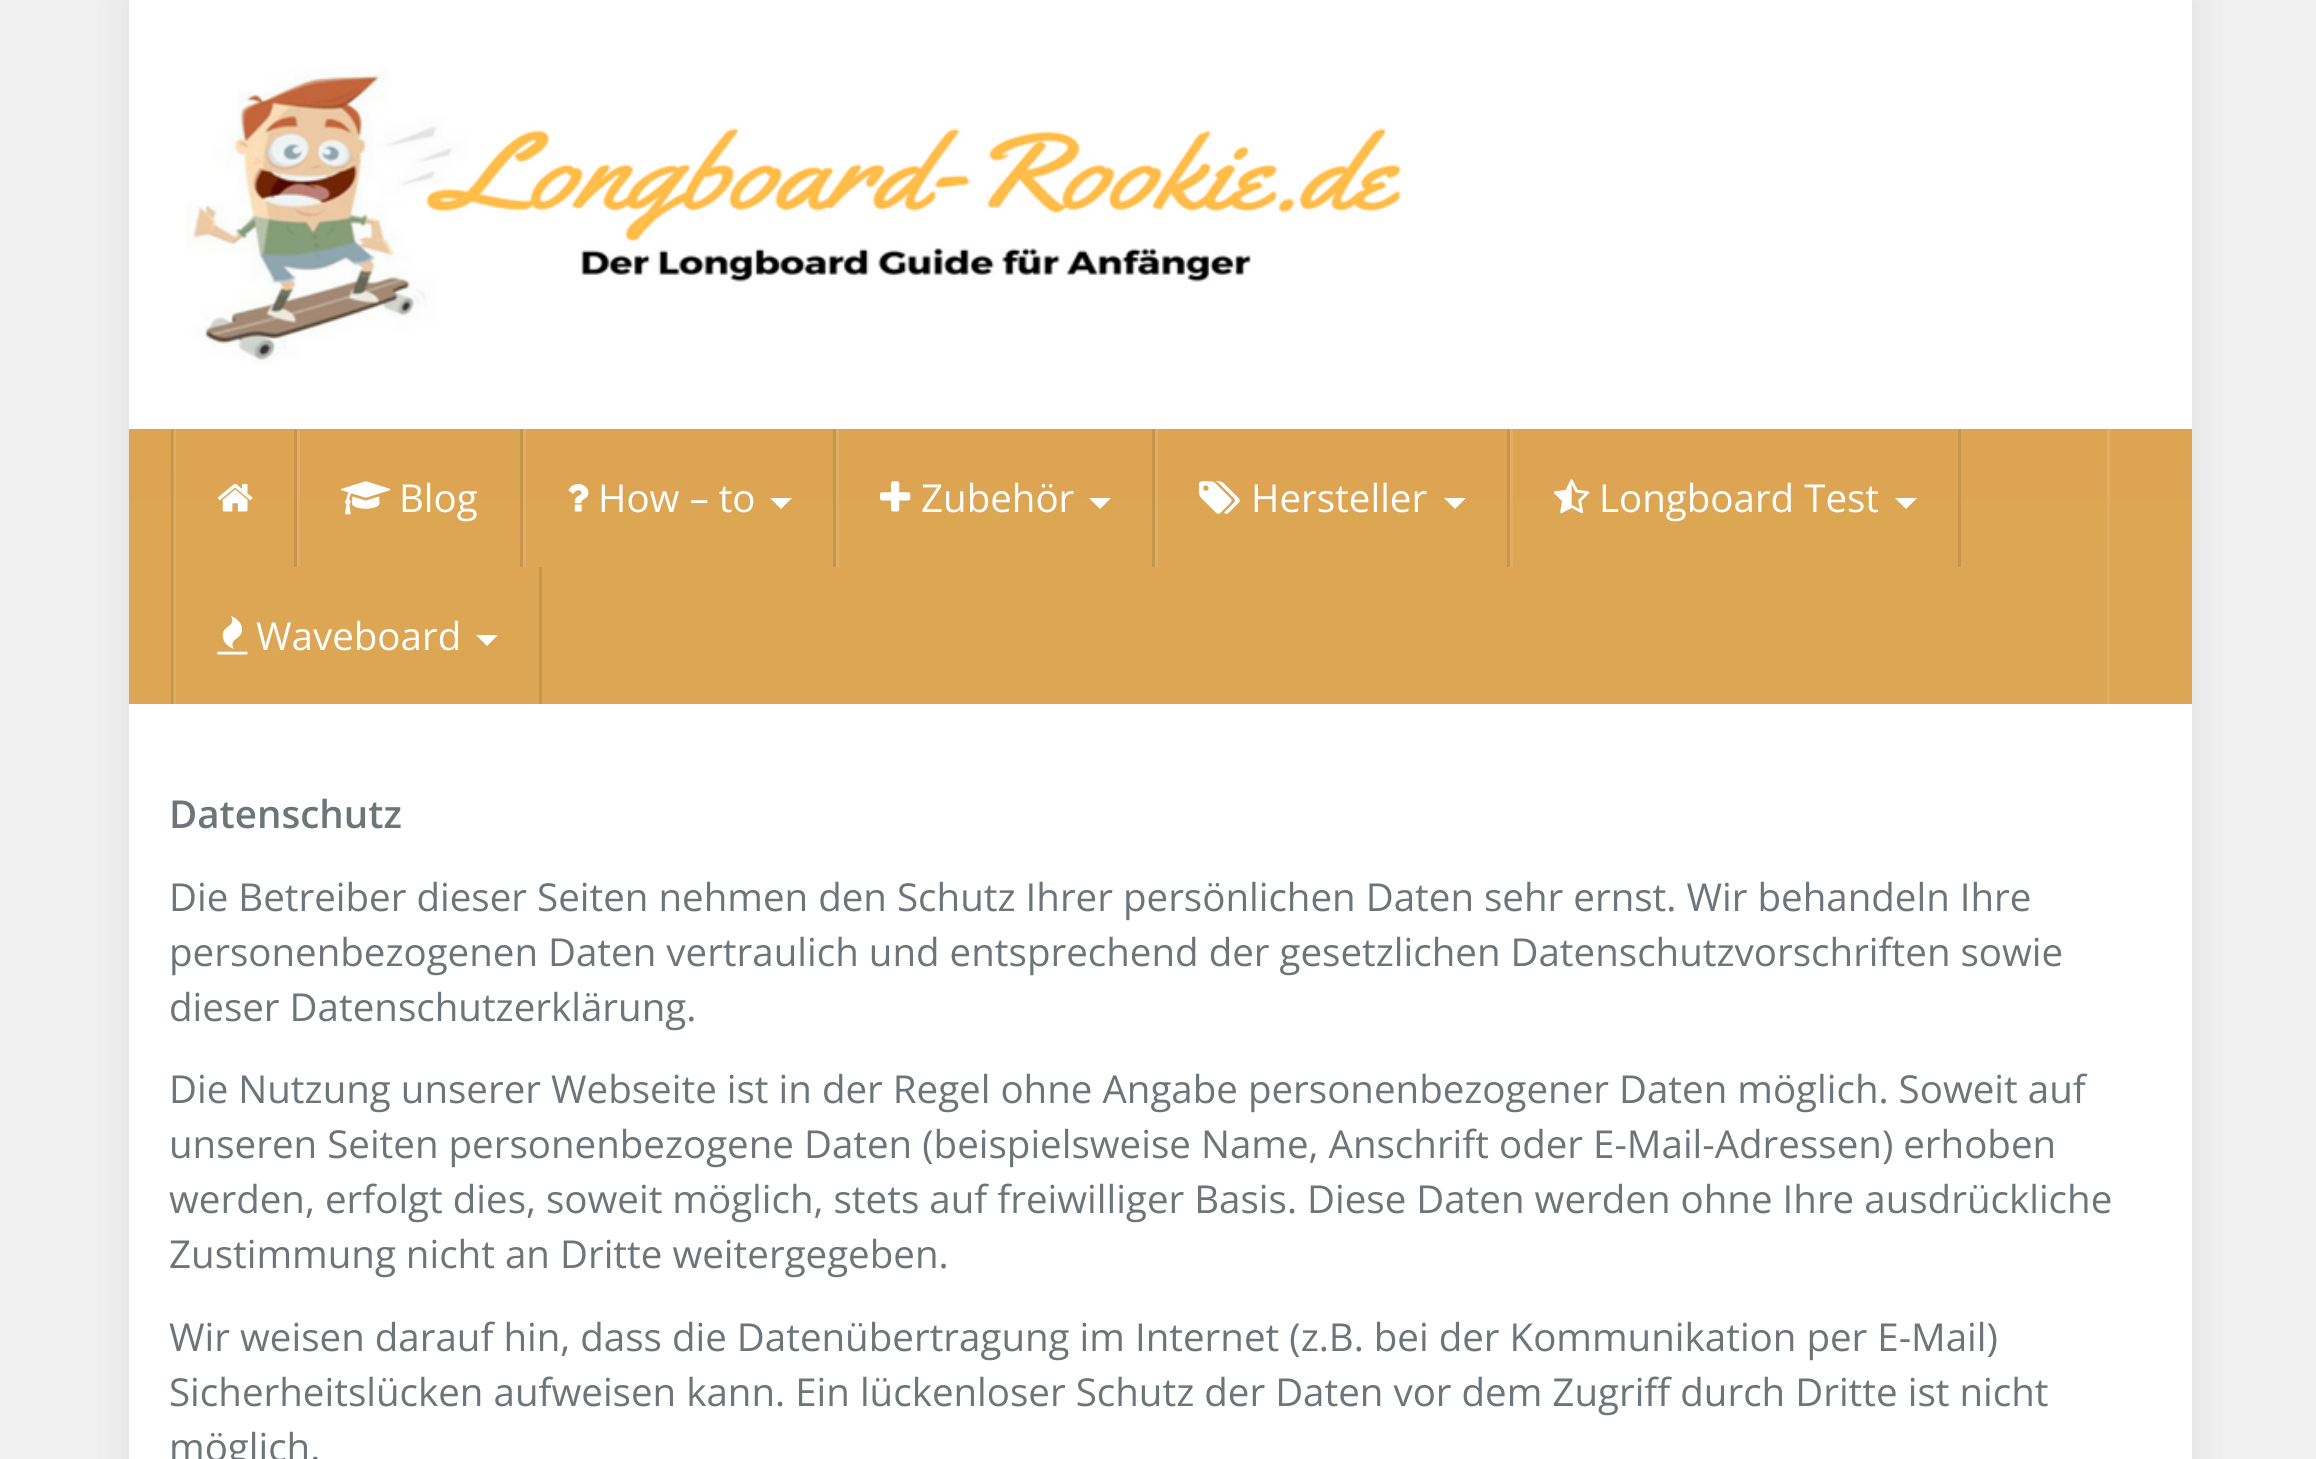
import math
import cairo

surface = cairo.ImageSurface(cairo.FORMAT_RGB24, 2316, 1459)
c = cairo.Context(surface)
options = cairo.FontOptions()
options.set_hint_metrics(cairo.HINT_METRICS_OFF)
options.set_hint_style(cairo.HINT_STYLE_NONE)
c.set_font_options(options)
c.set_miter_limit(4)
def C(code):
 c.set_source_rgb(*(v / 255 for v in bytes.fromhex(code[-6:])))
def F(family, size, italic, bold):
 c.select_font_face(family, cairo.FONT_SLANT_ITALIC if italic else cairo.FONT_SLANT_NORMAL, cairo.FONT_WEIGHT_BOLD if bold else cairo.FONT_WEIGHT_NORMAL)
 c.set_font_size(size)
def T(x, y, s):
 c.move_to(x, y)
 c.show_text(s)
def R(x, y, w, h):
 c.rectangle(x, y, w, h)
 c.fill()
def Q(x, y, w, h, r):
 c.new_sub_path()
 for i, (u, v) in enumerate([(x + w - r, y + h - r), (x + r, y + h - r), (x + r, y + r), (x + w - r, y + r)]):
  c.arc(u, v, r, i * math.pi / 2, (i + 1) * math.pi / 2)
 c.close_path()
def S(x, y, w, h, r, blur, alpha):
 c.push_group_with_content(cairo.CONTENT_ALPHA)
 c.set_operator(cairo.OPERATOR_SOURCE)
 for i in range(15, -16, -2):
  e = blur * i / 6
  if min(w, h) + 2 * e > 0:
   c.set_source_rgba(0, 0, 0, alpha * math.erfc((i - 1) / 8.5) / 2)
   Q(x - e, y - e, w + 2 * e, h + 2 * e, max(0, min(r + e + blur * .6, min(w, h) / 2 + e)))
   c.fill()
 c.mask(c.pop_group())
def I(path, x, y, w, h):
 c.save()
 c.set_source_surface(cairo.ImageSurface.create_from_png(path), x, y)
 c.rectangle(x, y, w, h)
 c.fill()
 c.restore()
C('f0f0f0')
c.paint()
C('dddddd')
S(129,0,2063,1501,0,14,1)
C('ffffff')
R(129,0,2063,1459)
I('1.png',185,67,1217,297)
gradient = cairo.LinearGradient(1161,429,1161,704)
gradient.add_color_stop_rgba(0,0.867,0.647,0.322,1)
gradient.add_color_stop_rgba(.5,0.867,0.651,0.329,1)
c.set_source(gradient)
R(129,429,2063,275)
gradient = cairo.LinearGradient(1161,429,1161,704)
gradient.add_color_stop_rgba(0,0.878,0.682,0.388,1)
gradient.add_color_stop_rgba(.5,0.878,0.686,0.396,1)
c.set_source(gradient)
R(174,567,2,137)
R(174,429,2,138)
C('e0af65')
R(2107,429,3,275)
C('c7954b')
R(171,429,2,275)
C('cda05d')
R(173,429,1,275)
C('c7954b')
R(294,429,3,138)
I('2.png',217,483,36,29)
R(520,429,3,138)
C('e0ae64')
R(297,429,3,138)
I('3.png',341,481,50,34)
F('Open Sans',38.5,0,0)
C('ffffff')
T(399,512,'Blog')
C('c7954b')
R(833,429,3,138)
C('e0ae64')
R(523,429,3,138)
I('4.png',568,484,21,28)
C('ffffff')
T(598,512,'How – to')
c.new_path()
c.move_to(770,498)
c.line_to(792,498)
c.line_to(781,509)
c.close_path()
c.fill()
C('c7954b')
R(1152,429,3,138)
C('e0ae64')
R(836,429,3,138)
I('5.png',880,481,31,31)
C('ffffff')
T(921,512,'Zubehör')
c.new_path()
c.move_to(1089,498)
c.line_to(1111,498)
c.line_to(1100,509)
c.close_path()
c.fill()
C('c7954b')
R(1507,429,3,138)
C('e0ae64')
R(1155,429,3,138)
I('6.png',1199,481,41,33)
C('ffffff')
T(1251,512,'Hersteller')
c.new_path()
c.move_to(1444,498)
c.line_to(1466,498)
c.line_to(1455,509)
c.close_path()
c.fill()
C('c7954b')
R(1958,429,3,138)
C('e0ae64')
R(1510,429,3,138)
I('7.png',1553,479,37,35)
C('ffffff')
T(1599,512,'Longboard Test')
c.new_path()
c.move_to(1895,498)
c.line_to(1917,498)
c.line_to(1906,509)
c.close_path()
c.fill()
C('c7954c')
R(539,567,3,137)
I('8.png',217,616,31,39)
C('ffffff')
T(256,650,'Waveboard')
c.new_path()
c.move_to(476,635)
c.line_to(498,635)
c.line_to(487,646)
c.close_path()
c.fill()
F('Open Sans SemiBold',38.5,0,0)
C('6f7479')
T(169,828,'Datenschutz')
F('Open Sans',38.5,0,0)
T(169,911,'Die Betreiber dieser Seiten nehmen den Schutz Ihrer persönlichen Daten sehr ernst. Wir behandeln Ihre')
T(169,966,'personenbezogenen Daten vertraulich und entsprechend der gesetzlichen Datenschutzvorschriften sowie')
T(169,1021,'dieser Datenschutzerklärung.')
T(169,1103,'Die Nutzung unserer Webseite ist in der Regel ohne Angabe personenbezogener Daten möglich. Soweit auf')
T(169,1158,'unseren Seiten personenbezogene Daten (beispielsweise Name, Anschrift oder E-Mail-Adressen) erhoben')
T(169,1213,'werden, erfolgt dies, soweit möglich, stets auf freiwilliger Basis. Diese Daten werden ohne Ihre ausdrückliche')
T(169,1268,'Zustimmung nicht an Dritte weitergegeben.')
T(169,1351,'Wir weisen darauf hin, dass die Datenübertragung im Internet (z.B. bei der Kommunikation per E-Mail)')
T(169,1406,'Sicherheitslücken aufweisen kann. Ein lückenloser Schutz der Daten vor dem Zugriff durch Dritte ist nicht')
T(169,1461,'möglich.')
surface.write_to_png('o.png')
